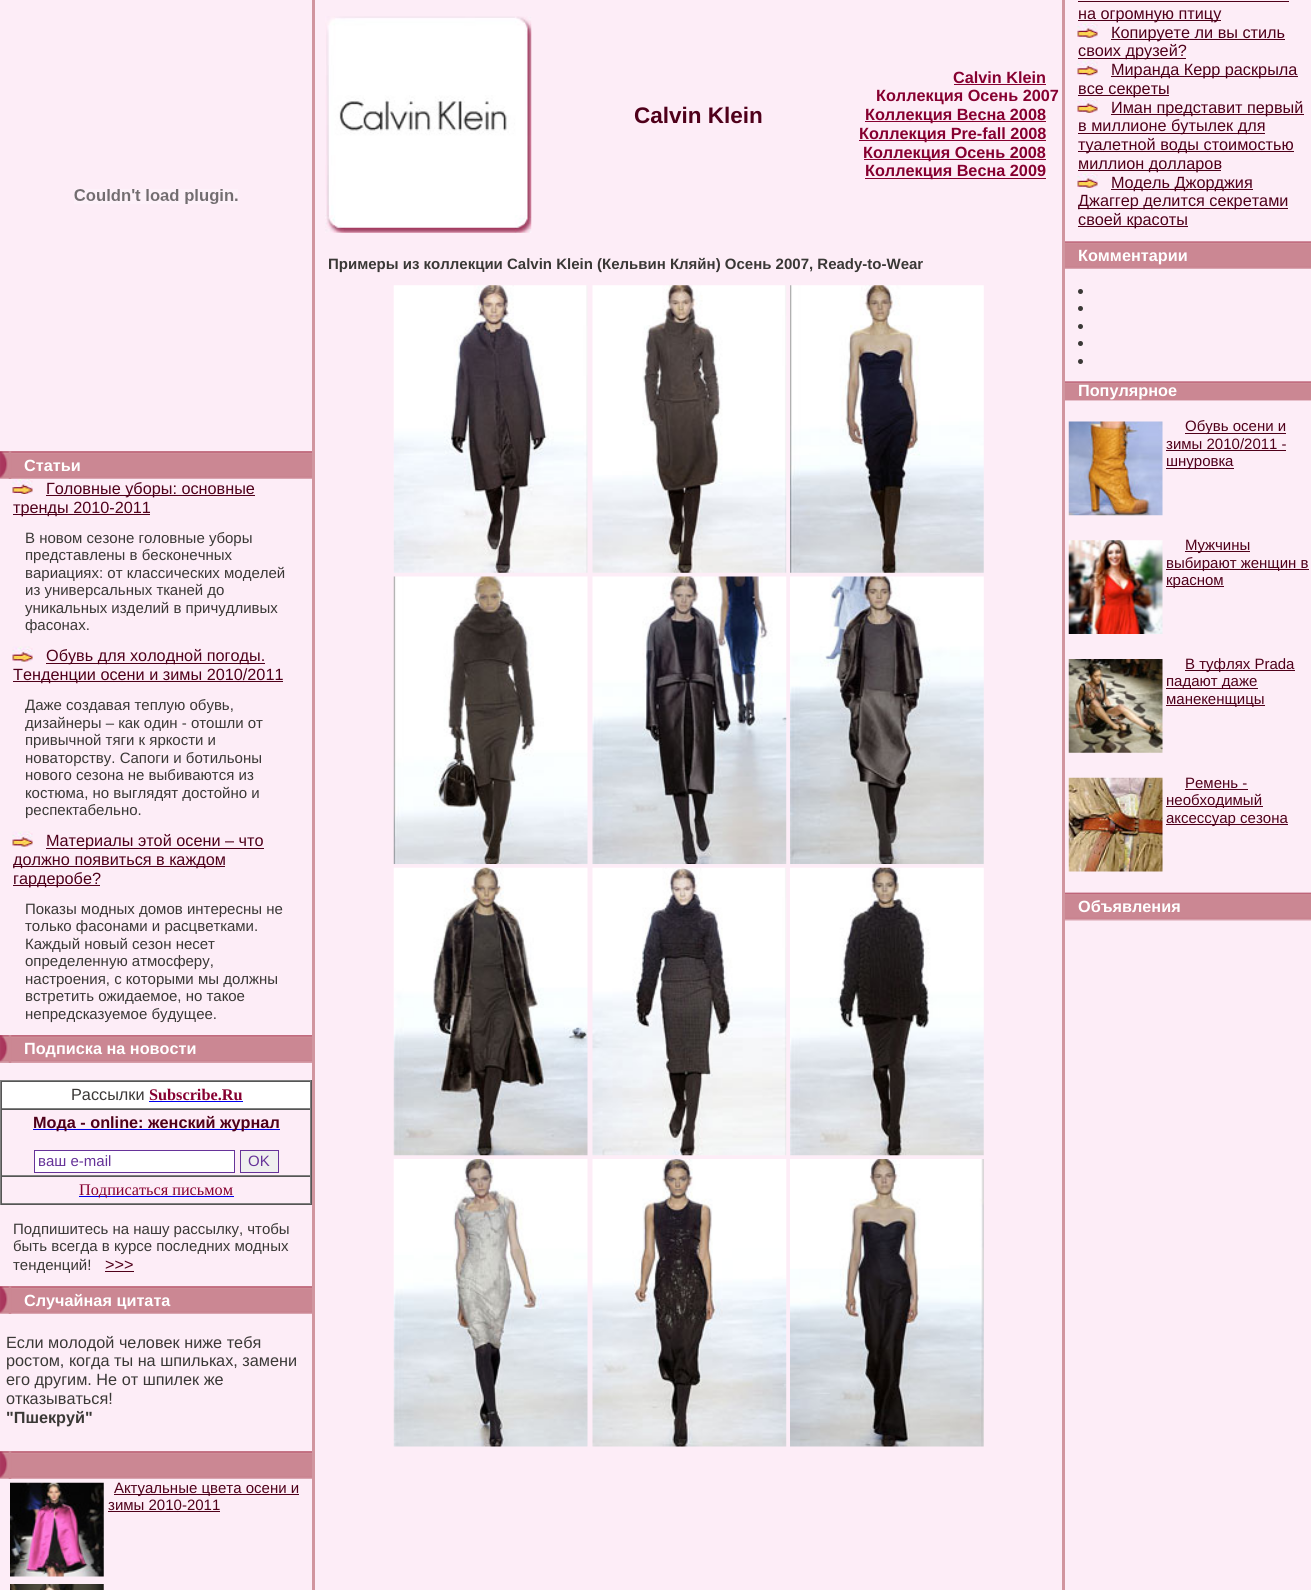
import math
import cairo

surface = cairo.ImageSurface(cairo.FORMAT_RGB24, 1311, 1590)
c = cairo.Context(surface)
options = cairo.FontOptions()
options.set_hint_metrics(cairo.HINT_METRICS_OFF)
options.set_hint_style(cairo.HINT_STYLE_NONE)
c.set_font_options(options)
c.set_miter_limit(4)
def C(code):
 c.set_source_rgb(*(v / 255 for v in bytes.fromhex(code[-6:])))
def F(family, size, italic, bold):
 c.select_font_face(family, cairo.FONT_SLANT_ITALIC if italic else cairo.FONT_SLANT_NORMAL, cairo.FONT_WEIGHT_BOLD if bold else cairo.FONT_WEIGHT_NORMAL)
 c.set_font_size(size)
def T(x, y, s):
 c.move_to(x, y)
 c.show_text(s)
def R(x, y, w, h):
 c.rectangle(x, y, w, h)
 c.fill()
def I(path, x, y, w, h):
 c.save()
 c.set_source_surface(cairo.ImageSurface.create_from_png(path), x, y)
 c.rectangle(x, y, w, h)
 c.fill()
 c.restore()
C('fdedf7')
c.paint()
C('808080')
R(0,1080,313,1)
C('555555')
R(311,1080,1,125)
R(0,1204,313,1)
C('d1959f')
R(312,0,3,1590)
I('1.png',325,16,207,217)
F('Liberation Sans',22.5,0,1)
C('4f001a')
T(634,123,'Calvin Klein')
F('Liberation Sans',16.25,0,1)
C('860030')
T(953,83,'Calvin Klein')
R(954,84,92,1)
T(876,101,'Коллекция Осень 2007')
R(865,121,181,1)
T(865,120,'Коллекция Весна 2008')
R(859,140,187,1)
T(859,139,'Коллекция Pre-fall 2008')
R(864,159,182,1)
T(863,158,'Коллекция Осень 2008')
R(865,178,181,1)
T(865,176,'Коллекция Весна 2009')
F('Liberation Sans',15,0,1)
C('3a3836')
T(328,269,'Примеры из коллекции Calvin Klein (Кельвин Кляйн) Осень 2007, Ready-to-Wear')
I('2.png',393,285,195,288)
I('3.png',592,285,195,288)
I('4.png',790,285,194,288)
I('5.png',393,576,195,288)
I('6.png',592,576,195,288)
I('7.png',790,576,194,288)
I('8.png',393,867,195,289)
I('9.png',592,867,195,289)
I('10.png',790,867,194,289)
I('11.png',393,1159,195,288)
I('12.png',592,1159,195,288)
I('13.png',790,1159,194,288)
C('d1959f')
R(1062,0,3,1590)
C('4f001a')
R(1078,20,143,1)
F('Liberation Sans',16.25,0,0)
T(1078,19,'на огромную птицу')
R(1078,1,211,1)
I('14.png',1077,23,21,15)
R(1111,39,174,1)
T(1111,38,'Копируете ли вы стиль')
R(1078,58,108,1)
T(1078,56,'своих друзей?')
I('15.png',1077,60,21,16)
R(1111,76,187,1)
T(1111,75,'Миранда Керр раскрыла')
R(1078,95,91,1)
T(1078,94,'все секреты')
I('16.png',1077,98,21,15)
R(1111,114,193,1)
T(1111,113,'Иман представит первый')
R(1078,133,187,1)
T(1078,131,'в миллионе бутылек для')
R(1078,151,216,1)
T(1078,150,'туалетной воды стоимостью')
R(1078,170,143,1)
T(1078,169,'миллион долларов')
I('14.png',1077,173,21,15)
R(1111,189,142,1)
T(1111,188,'Модель Джорджия')
R(1078,208,210,1)
T(1078,206,'Джаггер делится секретами')
R(1078,226,110,1)
T(1078,225,'своей красоты')
I('17.png',1065,241,246,28)
F('Liberation Sans',16.25,0,1)
C('ffffff')
T(1078,261,'Комментарии')
C('3a3836')
c.new_path()
c.arc(1080.5,291.5,2.5,0,2 * math.pi)
c.fill()
c.arc(1080.5,308.5,2.5,0,2 * math.pi)
c.fill()
c.arc(1080.5,326.5,2.5,0,2 * math.pi)
c.fill()
c.arc(1080.5,343.5,2.5,0,2 * math.pi)
c.fill()
c.arc(1080.5,361.5,2.5,0,2 * math.pi)
c.fill()
I('18.png',1065,381,246,20)
C('ffffff')
T(1078,396,'Популярное')
I('19.png',1068,421,95,95)
C('4f001a')
R(1185,433,101,1)
F('Liberation Sans',15,0,0)
T(1185,431,'Обувь осени и')
T(1166,449,'зимы 2010/2011 -')
R(1166,450,120,1)
R(1166,468,68,1)
T(1166,466,'шнуровка')
I('20.png',1068,540,95,94)
R(1185,551,65,1)
T(1185,550,'Мужчины')
R(1166,569,143,1)
T(1166,568,'выбирают женщин в')
R(1166,586,58,1)
T(1166,585,'красном')
I('21.png',1068,659,95,94)
R(1185,670,110,1)
T(1185,669,'В туфлях Prada')
R(1166,688,92,1)
T(1166,686,'падают даже')
R(1166,705,99,1)
T(1166,704,'манекенщицы')
I('22.png',1068,777,95,95)
T(1185,788,'Ремень -')
R(1185,789,63,1)
R(1166,806,97,1)
T(1166,805,'необходимый')
R(1166,824,122,1)
T(1166,823,'аксессуар сезона')
I('23.png',1065,892,246,29)
F('Liberation Sans',16.25,0,1)
C('ffffff')
T(1078,912,'Объявления')
I('24.png',74,189,164,15)
C('cb8793')
R(0,451,312,28)
I('25.png',0,451,9,28)
I('26.png',11,451,301,28)
C('ffffff')
T(24,471,'Статьи')
I('27.png',12,479,21,15)
C('4f001a')
R(46,495,209,1)
F('Liberation Sans',16.25,0,0)
T(46,494,'Головные уборы: основные')
R(13,514,137,1)
T(13,513,'тренды 2010-2011')
F('Liberation Sans',15,0,0)
C('3a3836')
T(25,543,'В новом сезоне головные уборы')
T(25,560,'представлены в бесконечных')
T(25,578,'вариациях: от классических моделей')
T(25,595,'из универсальных тканей до')
T(25,613,'уникальных изделий в причудливых')
T(25,630,'фасонах.')
I('28.png',12,646,21,16)
C('4f001a')
R(46,663,219,1)
F('Liberation Sans',16.25,0,0)
T(46,661,'Обувь для холодной погоды.')
R(13,681,270,1)
T(13,680,'Тенденции осени и зимы 2010/2011')
F('Liberation Sans',15,0,0)
C('3a3836')
T(25,710,'Даже создавая теплую обувь,')
T(25,728,'дизайнеры – как один - отошли от')
T(25,745,'привычной тяги к яркости и')
T(25,763,'новаторству. Сапоги и ботильоны')
T(25,780,'нового сезона не выбиваются из')
T(25,798,'костюма, но выглядят достойно и')
T(25,815,'респектабельно.')
I('28.png',12,831,21,16)
C('4f001a')
R(46,848,218,1)
F('Liberation Sans',16.25,0,0)
T(46,846,'Материалы этой осени – что')
R(13,866,212,1)
T(13,865,'должно появиться в каждом')
R(13,885,87,1)
T(13,884,'гардеробе?')
F('Liberation Sans',15,0,0)
C('3a3836')
T(25,914,'Показы модных домов интересны не')
T(25,931,'только фасонами и расцветками.')
T(25,949,'Каждый новый сезон несет')
T(25,966,'определенную атмосферу,')
T(25,984,'настроения, с которыми мы должны')
T(25,1001,'встретить ожидаемое, но такое')
T(25,1019,'непредсказуемое будущее.')
C('cb8793')
R(0,1035,312,28)
I('29.png',0,1035,9,28)
I('30.png',11,1035,301,28)
F('Liberation Sans',16.25,0,1)
C('ffffff')
T(24,1054,'Подписка на новости')
C('808080')
R(0,1080,1,125)
C('ffffff')
R(2,1082,308,26)
C('555555')
R(1,1081,310,1)
C('808080')
R(310,1081,1,28)
R(1,1108,310,1)
C('555555')
R(1,1081,1,28)
F('Liberation Sans',16.25,0,0)
C('3a3836')
T(71,1100,'Рассылки')
F('Liberation Serif',16.25,0,1)
C('860030')
T(149,1100,'Subscribe.Ru')
C('0000ee')
R(149,1101,94,1)
C('555555')
R(1,1109,310,1)
C('808080')
R(310,1109,1,67)
R(1,1175,310,1)
C('555555')
R(1,1109,1,67)
C('0000ee')
R(33,1129,247,1)
F('Liberation Sans',16.25,0,1)
C('4f001a')
T(33,1128,'Мода - online: женский журнал')
C('ffffff')
c.rectangle(34.5,1150.5,200,22)
c.fill_preserve()
C('663399')
c.set_line_width(1)
c.stroke()
F('Liberation Sans',15,0,0)
T(38,1166,'ваш e-mail')
C('efefef')
c.rectangle(240.5,1150.5,38,22)
c.fill_preserve()
C('663399')
c.stroke()
T(248,1166,'OK')
C('555555')
R(1,1176,310,1)
C('808080')
R(310,1176,1,28)
R(1,1203,310,1)
C('555555')
R(1,1176,1,28)
C('0000ee')
R(79,1196,155,1)
F('Liberation Serif',16.25,0,0)
C('860030')
T(79,1195,'Подписаться письмом')
F('Liberation Sans',15,0,0)
C('3a3836')
T(13,1234,'Подпишитесь на нашу рассылку, чтобы')
T(13,1251,'быть всегда в курсе последних модных')
T(13,1270,'тенденций!')
F('Liberation Sans',16.25,0,0)
C('4f001a')
T(105,1270,'>>>')
R(105,1271,29,1)
C('cb8793')
R(0,1286,312,28)
I('25.png',0,1286,9,28)
I('26.png',11,1286,301,28)
F('Liberation Sans',16.25,0,1)
C('ffffff')
T(24,1306,'Случайная цитата')
F('Liberation Sans',16.25,0,0)
C('3a3836')
T(6,1348,'Если молодой человек ниже тебя')
T(6,1366,'ростом, когда ты на шпильках, замени')
T(6,1385,'его другим. Hе от шпилек же')
T(6,1404,'отказываться!')
F('Liberation Sans',16.25,0,1)
T(6,1423,'"Пшекруй"')
C('cb8793')
R(0,1451,312,28)
I('25.png',0,1451,9,28)
I('26.png',11,1451,301,28)
I('31.png',10,1482,94,95)
C('4f001a')
R(114,1494,185,1)
F('Liberation Sans',15,0,0)
T(114,1493,'Актуальные цвета осени и')
T(108,1510,'зимы 2010-2011')
R(108,1511,112,1)
I('32.png',10,1584,94,6)
surface.write_to_png('o.png')
